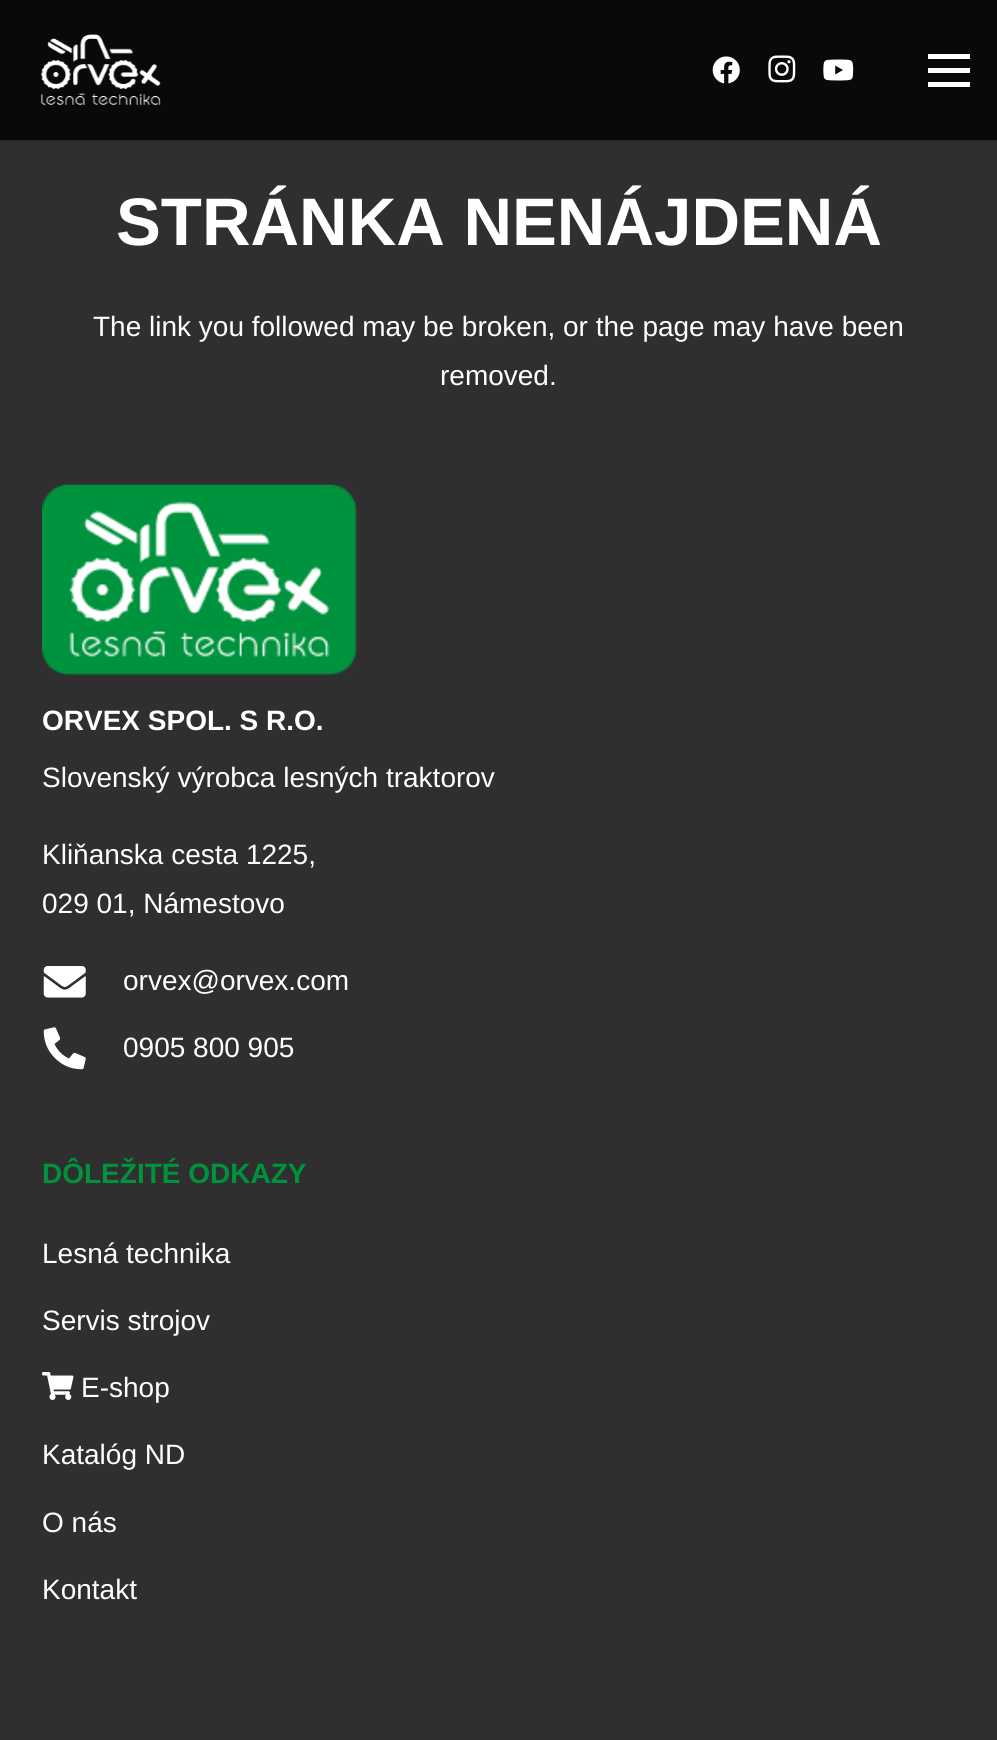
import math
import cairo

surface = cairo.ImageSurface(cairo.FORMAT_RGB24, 997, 1740)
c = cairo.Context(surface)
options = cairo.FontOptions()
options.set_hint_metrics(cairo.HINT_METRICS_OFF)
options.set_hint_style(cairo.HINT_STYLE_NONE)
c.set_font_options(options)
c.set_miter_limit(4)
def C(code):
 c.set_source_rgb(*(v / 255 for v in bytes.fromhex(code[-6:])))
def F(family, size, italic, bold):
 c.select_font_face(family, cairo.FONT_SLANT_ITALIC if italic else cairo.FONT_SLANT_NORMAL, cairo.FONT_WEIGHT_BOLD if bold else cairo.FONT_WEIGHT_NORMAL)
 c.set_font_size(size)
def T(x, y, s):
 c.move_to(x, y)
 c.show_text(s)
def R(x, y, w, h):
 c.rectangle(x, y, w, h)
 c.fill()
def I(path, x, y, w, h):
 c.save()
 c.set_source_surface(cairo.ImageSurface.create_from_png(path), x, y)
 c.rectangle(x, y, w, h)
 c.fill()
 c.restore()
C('2f2f2f')
c.paint()
C('2b2b2b')
c.new_path()
c.move_to(0,140)
c.line_to(0,142)
c.line_to(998,142)
c.line_to(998,2)
c.line_to(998,140)
c.close_path()
c.fill()
C('090909')
R(0,0,997,140)
I('1.png',40,34,121,71)
I('2.png',712,56,28,28)
I('3.png',768,55,28,28)
I('4.png',823,59,31,22)
C('ffffff')
R(928,68,42,5)
R(928,54,42,5)
R(928,82,42,5)
F('Liberation Sans',67.25,0,1)
T(116,245,'STRÁNKA NENÁJDENÁ')
F('Liberation Sans',28,0,0)
T(93,336,'The link you followed may be broken, or the page may have been')
T(440,385,'removed.')
I('5.png',42,484,315,192)
F('Liberation Sans',28,0,1)
T(42,730,'ORVEX SPOL. S R.O.')
F('Liberation Sans',28,0,0)
T(42,787,'Slovenský výrobca lesných traktorov')
T(42,864,'Kliňanska cesta 1225,')
T(42,913,'029 01, Námestovo')
I('6.png',43,966,43,32)
T(123,990,'orvex@orvex.com')
I('7.png',43,1027,43,43)
T(123,1057,'0905 800 905')
F('Liberation Sans',28,0,1)
C('00933e')
T(42,1183,'DÔLEŽITÉ ODKAZY')
F('Liberation Sans',28,0,0)
C('ffffff')
T(42,1263,'Lesná technika')
T(42,1330,'Servis strojov')
I('8.png',42,1372,32,28)
T(81,1397,'E-shop')
T(42,1464,'Katalóg ND')
T(42,1532,'O nás')
T(42,1599,'Kontakt')
surface.write_to_png('o.png')
